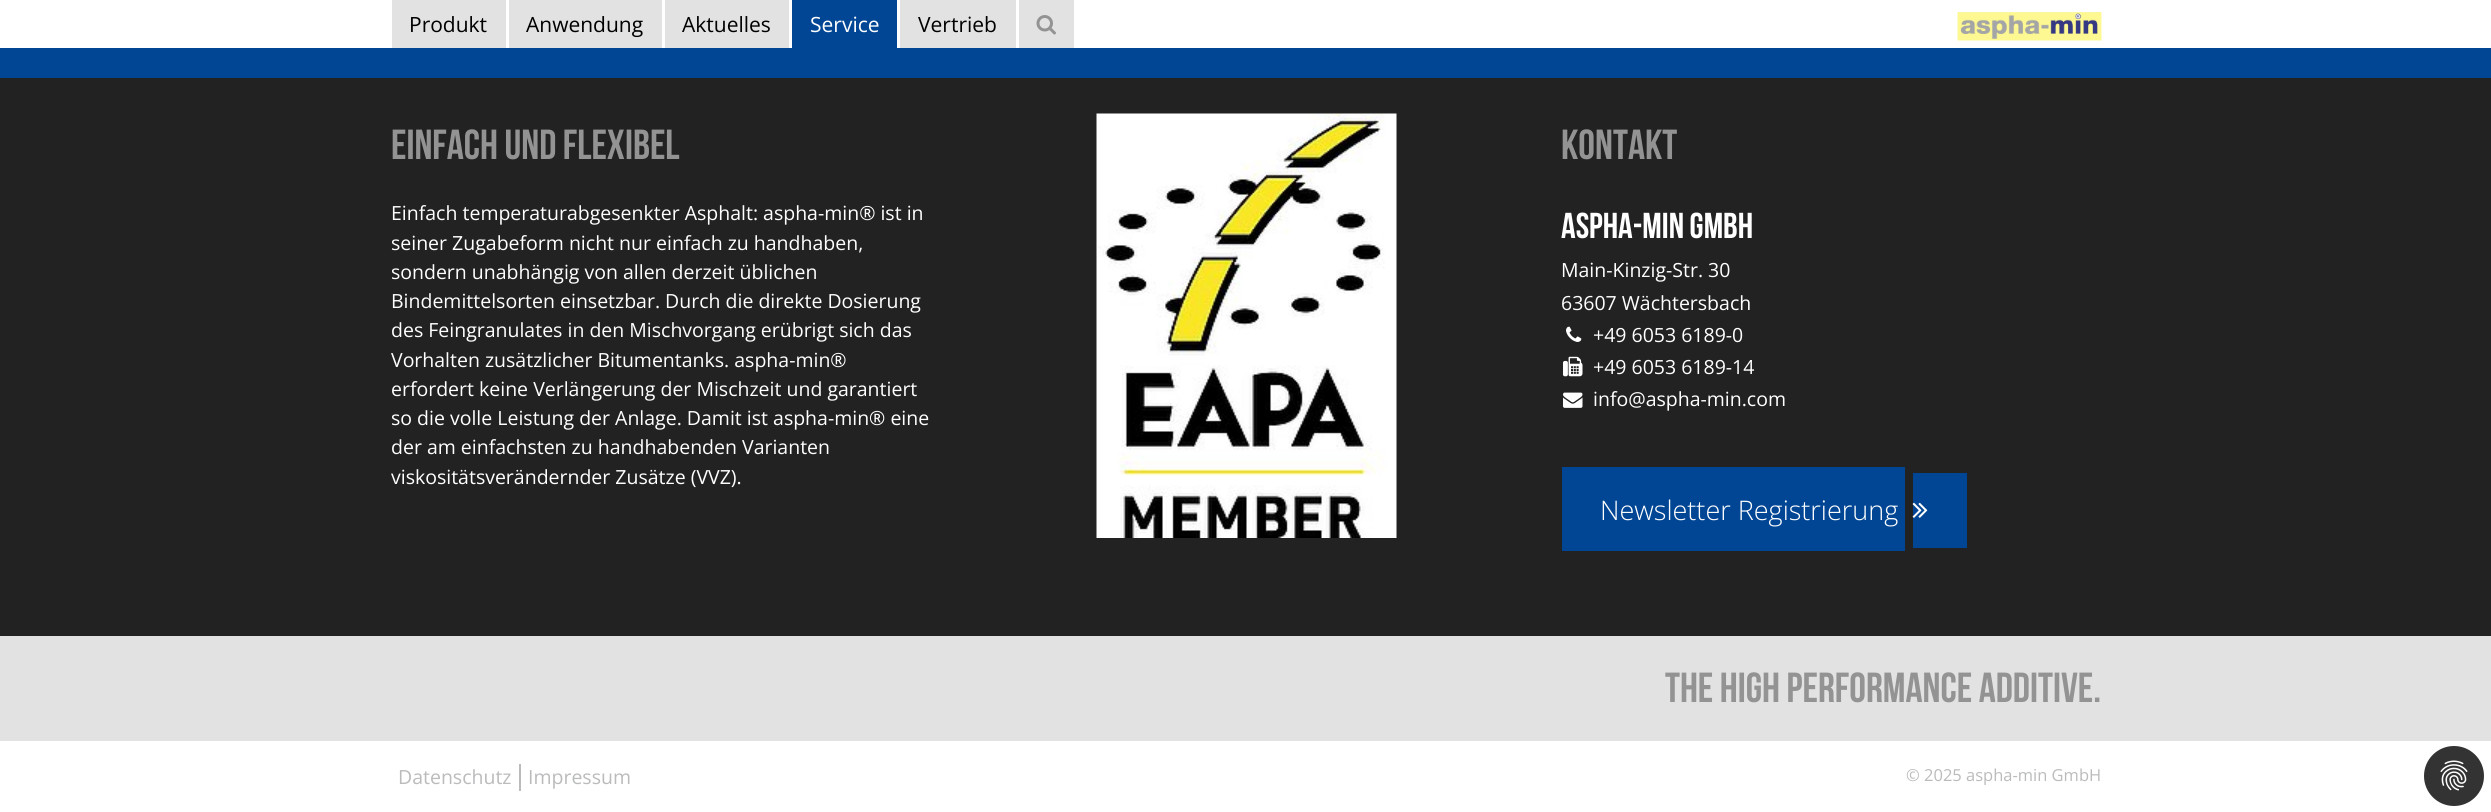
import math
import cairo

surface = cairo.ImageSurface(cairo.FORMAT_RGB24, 2491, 812)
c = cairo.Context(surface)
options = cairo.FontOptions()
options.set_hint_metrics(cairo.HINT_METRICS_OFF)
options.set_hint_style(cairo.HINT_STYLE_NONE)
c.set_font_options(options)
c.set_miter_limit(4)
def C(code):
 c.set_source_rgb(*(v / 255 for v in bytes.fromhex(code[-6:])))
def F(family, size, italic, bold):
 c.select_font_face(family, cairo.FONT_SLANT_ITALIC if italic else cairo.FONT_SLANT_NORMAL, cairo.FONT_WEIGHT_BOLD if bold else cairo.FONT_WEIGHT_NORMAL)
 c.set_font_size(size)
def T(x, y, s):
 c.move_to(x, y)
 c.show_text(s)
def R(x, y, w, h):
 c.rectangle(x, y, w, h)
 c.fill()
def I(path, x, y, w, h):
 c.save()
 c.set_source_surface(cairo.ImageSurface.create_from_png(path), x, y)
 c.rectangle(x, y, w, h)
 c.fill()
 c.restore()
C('ffffff')
c.paint()
C('014694')
R(0,48,2491,30)
C('e2e2e2')
R(392,0,114,48)
F('Open Sans',21,0,0)
C('000000')
T(409,32,'Produkt')
C('e2e2e2')
R(509,0,153,48)
C('000000')
T(526,32,'Anwendung')
C('e2e2e2')
R(665,0,124,48)
C('000000')
T(682,32,'Aktuelles')
C('014694')
R(792,0,105,48)
C('ffffff')
T(810,32,'Service')
C('e2e2e2')
R(900,0,116,48)
C('000000')
T(918,32,'Vertrieb')
C('e2e2e2')
R(1019,0,55,48)
I('1.png',1036,15,20,20)
I('2.png',1957,12,145,29)
C('222222')
R(0,78,2491,558)
F('Bebas Neue',42,0,1)
C('939393')
T(391,159,'Einfach und flexibel')
F('Open Sans',19.5,0,0)
C('ffffff')
T(391,220,'Einfach temperaturabgesenkter Asphalt: aspha-min® ist in')
T(391,250,'seiner Zugabeform nicht nur einfach zu handhaben,')
T(391,279,'sondern unabhängig von allen derzeit üblichen')
T(391,308,'Bindemittelsorten einsetzbar. Durch die direkte Dosierung')
T(391,337,'des Feingranulates in den Mischvorgang erübrigt sich das')
T(391,367,'Vorhalten zusätzlicher Bitumentanks. aspha-min®')
T(391,396,'erfordert keine Verlängerung der Mischzeit und garantiert')
T(391,425,'so die volle Leistung der Anlage. Damit ist aspha-min® eine')
T(391,454,'der am einfachsten zu handhabenden Varianten')
T(391,484,'viskositätsverändernder Zusätze (VVZ).')
I('3.png',1096,113,301,425)
F('Bebas Neue',42,0,1)
C('939393')
T(1561,159,'Kontakt')
F('Bebas Neue',36,0,1)
C('ffffff')
T(1561,238,'aspha-min GmbH')
F('Open Sans',19.5,0,0)
T(1561,277,'Main-Kinzig-Str. 30')
T(1561,310,'63607 Wächtersbach')
I('4.png',1566,326,16,16)
T(1593,342,'+49 6053 6189-0')
I('5.png',1563,356,20,21)
T(1593,374,'+49 6053 6189-14')
I('6.png',1563,392,20,16)
T(1593,406,'info@aspha-min.com')
C('014694')
R(1562,467,343,84)
R(1913,473,54,75)
F('Open Sans Light',27,0,0)
C('ffffff')
T(1600,520,'Newsletter Registrierung')
I('7.png',1912,502,16,16)
C('e2e2e2')
R(0,636,2491,105)
F('Bebas Neue',42,0,1)
C('939393')
T(1665,702,'THE HIGH PERFORMANCE ADDITIVE.')
C('babbbd')
R(519,764,2,27)
F('Open Sans',19.5,0,0)
T(398,784,'Datenschutz')
T(528,784,'Impressum')
F('Open Sans',16.5,0,0)
T(1906,781,'© 2025 aspha-min GmbH')
C('333333')
c.new_path()
c.arc(2454,776,30,0,2 * math.pi)
c.fill()
I('8.png',2440,760,28,31)
surface.write_to_png('o.png')
